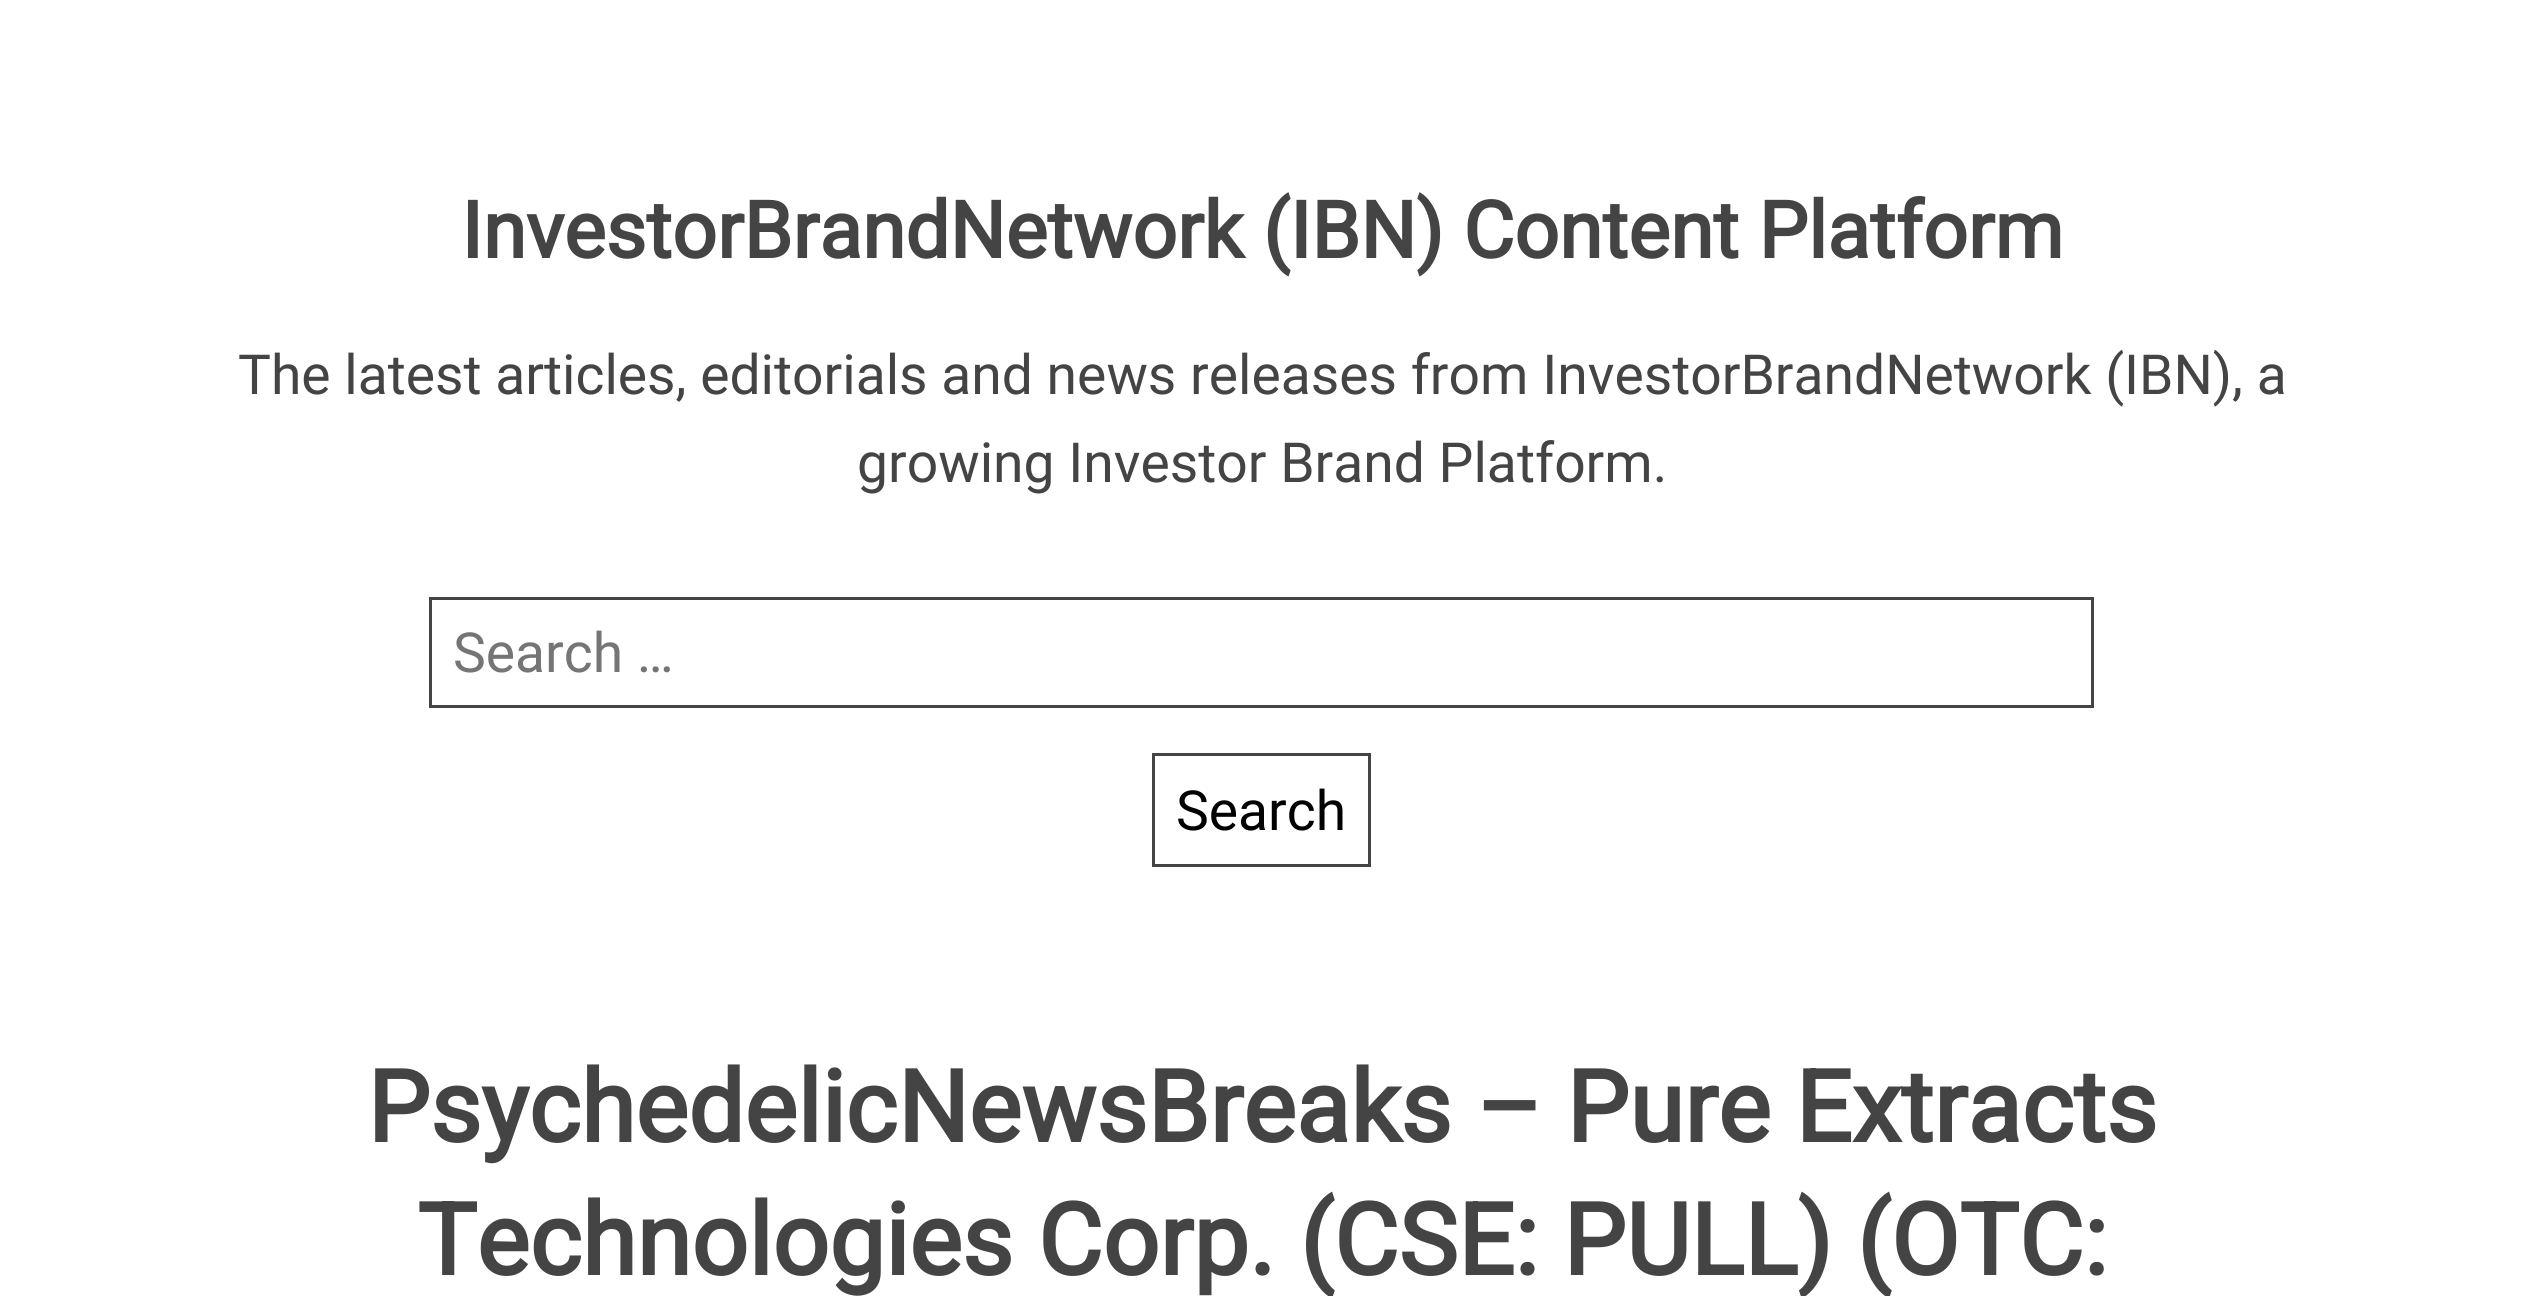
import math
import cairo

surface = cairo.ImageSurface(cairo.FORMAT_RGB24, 2523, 1296)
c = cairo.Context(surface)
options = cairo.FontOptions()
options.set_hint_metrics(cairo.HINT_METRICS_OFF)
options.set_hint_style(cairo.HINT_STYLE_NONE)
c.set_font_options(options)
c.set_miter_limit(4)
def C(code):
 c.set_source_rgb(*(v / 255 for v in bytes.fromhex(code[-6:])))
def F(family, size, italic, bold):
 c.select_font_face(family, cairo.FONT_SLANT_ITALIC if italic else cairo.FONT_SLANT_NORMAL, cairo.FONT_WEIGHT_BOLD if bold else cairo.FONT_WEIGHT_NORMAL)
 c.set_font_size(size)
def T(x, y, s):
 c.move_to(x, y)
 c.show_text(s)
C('ffffff')
c.paint()
F('Roboto',78.6,0,1)
C('444444')
T(461,258,'InvestorBrandNetwork (IBN) Content Platform')
F('Roboto',55.2,0,0)
T(238,394,'The latest articles, editorials and news releases from InvestorBrandNetwork (IBN), a')
T(857,482,'growing Investor Brand Platform.')
c.rectangle(430.5,598.5,1662,108)
c.set_line_width(3)
c.stroke()
C('757575')
T(453,672,'Search …')
c.rectangle(1153.5,754.5,216,111)
C('444444')
c.stroke()
C('000000')
T(1176,830,'Search')
F('Roboto',99.5,0,1)
C('444444')
T(367,1142,'PsychedelicNewsBreaks – Pure Extracts')
T(417,1275,'Technologies Corp. (CSE: PULL) (OTC:')
surface.write_to_png('o.png')
